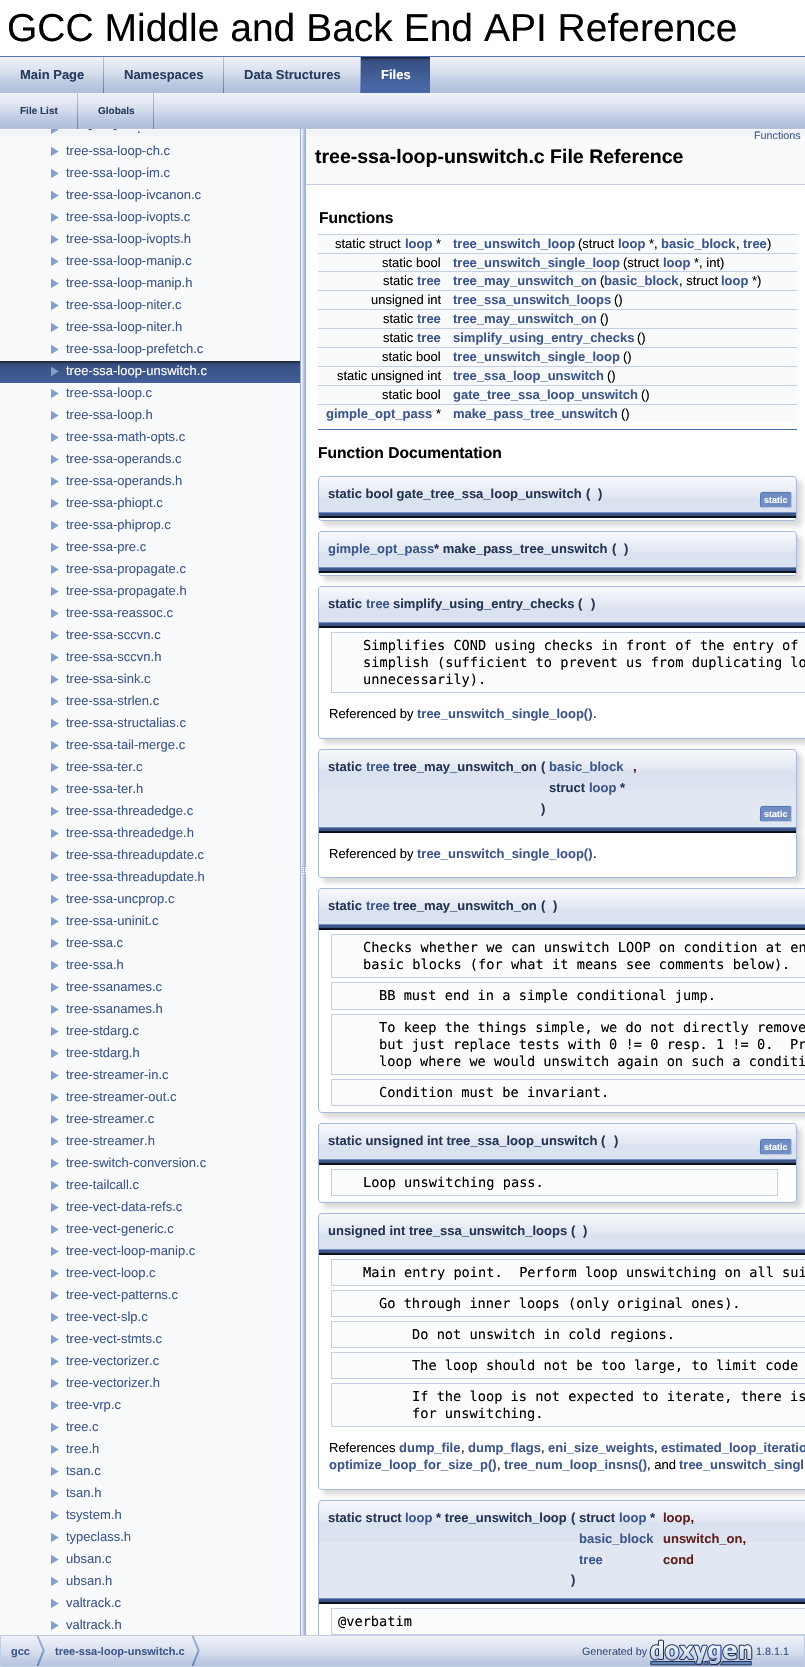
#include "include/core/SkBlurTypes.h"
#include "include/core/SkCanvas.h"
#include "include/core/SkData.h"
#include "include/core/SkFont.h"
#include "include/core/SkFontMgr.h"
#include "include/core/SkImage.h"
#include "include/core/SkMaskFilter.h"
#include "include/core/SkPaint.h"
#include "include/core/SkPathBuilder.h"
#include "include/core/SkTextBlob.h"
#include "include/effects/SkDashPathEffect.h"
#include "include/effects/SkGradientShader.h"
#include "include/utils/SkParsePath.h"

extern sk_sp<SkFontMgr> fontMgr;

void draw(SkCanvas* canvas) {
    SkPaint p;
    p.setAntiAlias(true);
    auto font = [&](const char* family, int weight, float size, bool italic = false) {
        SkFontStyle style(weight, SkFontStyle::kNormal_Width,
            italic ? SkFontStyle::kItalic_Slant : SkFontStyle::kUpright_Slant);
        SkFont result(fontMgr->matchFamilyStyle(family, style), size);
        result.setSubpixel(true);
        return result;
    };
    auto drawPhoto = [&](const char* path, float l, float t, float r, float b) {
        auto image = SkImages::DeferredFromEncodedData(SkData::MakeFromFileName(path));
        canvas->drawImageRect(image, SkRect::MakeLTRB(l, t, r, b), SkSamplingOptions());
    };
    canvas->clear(0xFFFFFFFF);
    p.setColor(0xFF5373B4);
    canvas->drawRect(SkRect::MakeLTRB(0, 56, 805, 57), p);
    auto font1 = font("Liberation Sans", 400, 39);
    p.setColor(0xFF000000);
    canvas->drawString("GCC Middle and Back End API Reference", 7, 41, font1, p);
    drawPhoto("media/1.png", 0, 57, 805, 93);
    drawPhoto("media/2.png", 103, 57, 104, 93);
    auto font2 = font("Liberation Sans", 700, 13);
    p.setColor(0xFF283A5D);
    canvas->drawString("Main Page", 20, 79, font2, p);
    drawPhoto("media/2.png", 223, 57, 224, 93);
    canvas->drawString("Namespaces", 124, 79, font2, p);
    drawPhoto("media/2.png", 360, 57, 361, 93);
    canvas->drawString("Data Structures", 244, 79, font2, p);
    drawPhoto("media/3.png", 361, 57, 430, 93);
    p.setColor(0xFFFFFFFF);
    canvas->drawString("Files", 381, 79, font2, p);
    drawPhoto("media/1.png", 0, 93, 805, 129);
    drawPhoto("media/2.png", 77, 93, 78, 129);
    auto font3 = font("Liberation Sans", 700, 10);
    p.setColor(0xFF283A5D);
    canvas->drawString("File List", 20, 114, font3, p);
    drawPhoto("media/2.png", 153, 93, 154, 129);
    canvas->drawString("Globals", 98, 114, font3, p);
    p.setColor(0xFFF9FAFC);
    canvas->drawRect(SkRect::MakeLTRB(0, 137, 300, 1635), p);
    drawPhoto("media/4.png", 0, 129, 300, 137);
    drawPhoto("media/5.png", 51, 129, 59, 134);
    auto font4 = font("Liberation Sans", 400, 13);
    p.setColor(0xFF3D578C);
    {
        const struct { const char* s; float x, y; } items[] = {
            {"-", 88, 133},
            {"-", 113, 133},
            {".", 137, 133},
        };
        for (auto [s, x, y] : items) {
            canvas->drawString(s, x, y, font4, p);
        }
    }
    drawPhoto("media/6.png", 51, 147, 59, 156);
    canvas->drawString("tree-ssa-loop-ch.c", 66, 155, font4, p);
    drawPhoto("media/6.png", 51, 169, 59, 178);
    canvas->drawString("tree-ssa-loop-im.c", 66, 177, font4, p);
    drawPhoto("media/6.png", 51, 191, 59, 200);
    canvas->drawString("tree-ssa-loop-ivcanon.c", 66, 199, font4, p);
    drawPhoto("media/6.png", 51, 213, 59, 222);
    canvas->drawString("tree-ssa-loop-ivopts.c", 66, 221, font4, p);
    drawPhoto("media/6.png", 51, 235, 59, 244);
    canvas->drawString("tree-ssa-loop-ivopts.h", 66, 243, font4, p);
    drawPhoto("media/6.png", 51, 257, 59, 266);
    canvas->drawString("tree-ssa-loop-manip.c", 66, 265, font4, p);
    drawPhoto("media/6.png", 51, 279, 59, 288);
    canvas->drawString("tree-ssa-loop-manip.h", 66, 287, font4, p);
    drawPhoto("media/6.png", 51, 301, 59, 310);
    canvas->drawString("tree-ssa-loop-niter.c", 66, 309, font4, p);
    drawPhoto("media/6.png", 51, 323, 59, 332);
    canvas->drawString("tree-ssa-loop-niter.h", 66, 331, font4, p);
    drawPhoto("media/6.png", 51, 345, 59, 354);
    canvas->drawString("tree-ssa-loop-prefetch.c", 66, 353, font4, p);
    drawPhoto("media/7.png", 0, 361, 300, 383);
    drawPhoto("media/8.png", 51, 367, 59, 376);
    p.setColor(0xFFFFFFFF);
    canvas->drawString("tree-ssa-loop-unswitch.c", 66, 375, font4, p);
    drawPhoto("media/6.png", 51, 389, 59, 398);
    p.setColor(0xFF3D578C);
    canvas->drawString("tree-ssa-loop.c", 66, 397, font4, p);
    drawPhoto("media/6.png", 51, 411, 59, 420);
    canvas->drawString("tree-ssa-loop.h", 66, 419, font4, p);
    drawPhoto("media/6.png", 51, 433, 59, 442);
    canvas->drawString("tree-ssa-math-opts.c", 66, 441, font4, p);
    drawPhoto("media/6.png", 51, 455, 59, 464);
    canvas->drawString("tree-ssa-operands.c", 66, 463, font4, p);
    drawPhoto("media/6.png", 51, 477, 59, 486);
    canvas->drawString("tree-ssa-operands.h", 66, 485, font4, p);
    drawPhoto("media/6.png", 51, 499, 59, 508);
    canvas->drawString("tree-ssa-phiopt.c", 66, 507, font4, p);
    drawPhoto("media/6.png", 51, 521, 59, 530);
    canvas->drawString("tree-ssa-phiprop.c", 66, 529, font4, p);
    drawPhoto("media/6.png", 51, 543, 59, 552);
    canvas->drawString("tree-ssa-pre.c", 66, 551, font4, p);
    drawPhoto("media/6.png", 51, 565, 59, 574);
    canvas->drawString("tree-ssa-propagate.c", 66, 573, font4, p);
    drawPhoto("media/6.png", 51, 587, 59, 596);
    canvas->drawString("tree-ssa-propagate.h", 66, 595, font4, p);
    drawPhoto("media/6.png", 51, 609, 59, 618);
    canvas->drawString("tree-ssa-reassoc.c", 66, 617, font4, p);
    drawPhoto("media/6.png", 51, 631, 59, 640);
    canvas->drawString("tree-ssa-sccvn.c", 66, 639, font4, p);
    drawPhoto("media/6.png", 51, 653, 59, 662);
    canvas->drawString("tree-ssa-sccvn.h", 66, 661, font4, p);
    drawPhoto("media/6.png", 51, 675, 59, 684);
    canvas->drawString("tree-ssa-sink.c", 66, 683, font4, p);
    drawPhoto("media/6.png", 51, 697, 59, 706);
    canvas->drawString("tree-ssa-strlen.c", 66, 705, font4, p);
    drawPhoto("media/6.png", 51, 719, 59, 728);
    canvas->drawString("tree-ssa-structalias.c", 66, 727, font4, p);
    drawPhoto("media/6.png", 51, 741, 59, 750);
    canvas->drawString("tree-ssa-tail-merge.c", 66, 749, font4, p);
    drawPhoto("media/6.png", 51, 763, 59, 772);
    canvas->drawString("tree-ssa-ter.c", 66, 771, font4, p);
    drawPhoto("media/6.png", 51, 785, 59, 794);
    canvas->drawString("tree-ssa-ter.h", 66, 793, font4, p);
    drawPhoto("media/6.png", 51, 807, 59, 816);
    canvas->drawString("tree-ssa-threadedge.c", 66, 815, font4, p);
    drawPhoto("media/6.png", 51, 829, 59, 838);
    canvas->drawString("tree-ssa-threadedge.h", 66, 837, font4, p);
    drawPhoto("media/6.png", 51, 851, 59, 860);
    canvas->drawString("tree-ssa-threadupdate.c", 66, 859, font4, p);
    drawPhoto("media/6.png", 51, 873, 59, 882);
    canvas->drawString("tree-ssa-threadupdate.h", 66, 881, font4, p);
    drawPhoto("media/6.png", 51, 895, 59, 904);
    canvas->drawString("tree-ssa-uncprop.c", 66, 903, font4, p);
    drawPhoto("media/6.png", 51, 917, 59, 926);
    canvas->drawString("tree-ssa-uninit.c", 66, 925, font4, p);
    drawPhoto("media/6.png", 51, 939, 59, 948);
    canvas->drawString("tree-ssa.c", 66, 947, font4, p);
    drawPhoto("media/6.png", 51, 961, 59, 970);
    canvas->drawString("tree-ssa.h", 66, 969, font4, p);
    drawPhoto("media/6.png", 51, 983, 59, 992);
    canvas->drawString("tree-ssanames.c", 66, 991, font4, p);
    drawPhoto("media/6.png", 51, 1005, 59, 1014);
    canvas->drawString("tree-ssanames.h", 66, 1013, font4, p);
    drawPhoto("media/6.png", 51, 1027, 59, 1036);
    canvas->drawString("tree-stdarg.c", 66, 1035, font4, p);
    drawPhoto("media/6.png", 51, 1049, 59, 1058);
    canvas->drawString("tree-stdarg.h", 66, 1057, font4, p);
    drawPhoto("media/6.png", 51, 1071, 59, 1080);
    canvas->drawString("tree-streamer-in.c", 66, 1079, font4, p);
    drawPhoto("media/6.png", 51, 1093, 59, 1102);
    canvas->drawString("tree-streamer-out.c", 66, 1101, font4, p);
    drawPhoto("media/6.png", 51, 1115, 59, 1124);
    canvas->drawString("tree-streamer.c", 66, 1123, font4, p);
    drawPhoto("media/6.png", 51, 1137, 59, 1146);
    canvas->drawString("tree-streamer.h", 66, 1145, font4, p);
    drawPhoto("media/6.png", 51, 1159, 59, 1168);
    canvas->drawString("tree-switch-conversion.c", 66, 1167, font4, p);
    drawPhoto("media/6.png", 51, 1181, 59, 1190);
    canvas->drawString("tree-tailcall.c", 66, 1189, font4, p);
    drawPhoto("media/6.png", 51, 1203, 59, 1212);
    canvas->drawString("tree-vect-data-refs.c", 66, 1211, font4, p);
    drawPhoto("media/6.png", 51, 1225, 59, 1234);
    canvas->drawString("tree-vect-generic.c", 66, 1233, font4, p);
    drawPhoto("media/6.png", 51, 1247, 59, 1256);
    canvas->drawString("tree-vect-loop-manip.c", 66, 1255, font4, p);
    drawPhoto("media/6.png", 51, 1269, 59, 1278);
    canvas->drawString("tree-vect-loop.c", 66, 1277, font4, p);
    drawPhoto("media/6.png", 51, 1291, 59, 1300);
    canvas->drawString("tree-vect-patterns.c", 66, 1299, font4, p);
    drawPhoto("media/6.png", 51, 1313, 59, 1322);
    canvas->drawString("tree-vect-slp.c", 66, 1321, font4, p);
    drawPhoto("media/6.png", 51, 1335, 59, 1344);
    canvas->drawString("tree-vect-stmts.c", 66, 1343, font4, p);
    drawPhoto("media/6.png", 51, 1357, 59, 1366);
    canvas->drawString("tree-vectorizer.c", 66, 1365, font4, p);
    drawPhoto("media/6.png", 51, 1379, 59, 1388);
    canvas->drawString("tree-vectorizer.h", 66, 1387, font4, p);
    drawPhoto("media/6.png", 51, 1401, 59, 1410);
    canvas->drawString("tree-vrp.c", 66, 1409, font4, p);
    drawPhoto("media/6.png", 51, 1423, 59, 1432);
    canvas->drawString("tree.c", 66, 1431, font4, p);
    drawPhoto("media/6.png", 51, 1445, 59, 1454);
    canvas->drawString("tree.h", 66, 1453, font4, p);
    drawPhoto("media/6.png", 51, 1467, 59, 1476);
    canvas->drawString("tsan.c", 66, 1475, font4, p);
    drawPhoto("media/6.png", 51, 1489, 59, 1498);
    canvas->drawString("tsan.h", 66, 1497, font4, p);
    drawPhoto("media/6.png", 51, 1511, 59, 1520);
    canvas->drawString("tsystem.h", 66, 1519, font4, p);
    drawPhoto("media/6.png", 51, 1533, 59, 1542);
    canvas->drawString("typeclass.h", 66, 1541, font4, p);
    drawPhoto("media/6.png", 51, 1555, 59, 1564);
    canvas->drawString("ubsan.c", 66, 1563, font4, p);
    drawPhoto("media/6.png", 51, 1577, 59, 1586);
    canvas->drawString("ubsan.h", 66, 1585, font4, p);
    drawPhoto("media/6.png", 51, 1599, 59, 1608);
    canvas->drawString("valtrack.c", 66, 1607, font4, p);
    drawPhoto("media/6.png", 51, 1621, 59, 1630);
    canvas->drawString("valtrack.h", 66, 1629, font4, p);
    drawPhoto("media/9.png", 300, 129, 306, 1635);
    p.setColor(0xFFF9FAFC);
    canvas->drawRect(SkRect::MakeLTRB(306, 137, 805, 184), p);
    drawPhoto("media/10.png", 306, 129, 805, 137);
    p.setColor(0xFFC4CFE5);
    canvas->drawRect(SkRect::MakeLTRB(306, 184, 805, 185), p);
    auto font5 = font("Liberation Sans", 400, 10.75f);
    p.setColor(0xFF3D578C);
    canvas->drawString("Functions", 754, 139, font5, p);
    auto font6 = font("Liberation Sans", 700, 19.5f);
    p.setColor(0xFF000000);
    canvas->drawString("tree-ssa-loop-unswitch.c File Reference", 315, 163, font6, p);
    auto font7 = font("Liberation Sans", 700, 15.6f);
    canvas->drawString("Functions", 319, 223, font7, p);
    p.setColor(0xFFF9FAFC);
    canvas->drawRect(SkRect::MakeLTRB(318, 235, 797, 253), p);
    p.setColor(0xFFC4CFE5);
    canvas->drawRect(SkRect::MakeLTRB(318, 234, 797, 235), p);
    p.setColor(0xFF000000);
    canvas->drawString("static struct", 335, 248, font4, p);
    p.setColor(0xFF3D578C);
    canvas->drawString("loop", 405, 248, font2, p);
    p.setColor(0xFF000000);
    canvas->drawString("*", 436, 248, font4, p);
    p.setColor(0xFF3D578C);
    canvas->drawString("tree_unswitch_loop", 453, 248, font2, p);
    p.setColor(0xFF000000);
    canvas->drawString("(struct", 578, 248, font4, p);
    p.setColor(0xFF3D578C);
    canvas->drawString("loop", 618, 248, font2, p);
    p.setColor(0xFF000000);
    canvas->drawString("*,", 649, 248, font4, p);
    p.setColor(0xFF3D578C);
    canvas->drawString("basic_block", 661, 248, font2, p);
    p.setColor(0xFF000000);
    canvas->drawString(",", 736, 248, font4, p);
    p.setColor(0xFF3D578C);
    canvas->drawString("tree", 743, 248, font2, p);
    p.setColor(0xFF000000);
    canvas->drawString(")", 767, 248, font4, p);
    p.setColor(0xFFF9FAFC);
    canvas->drawRect(SkRect::MakeLTRB(318, 254, 797, 271), p);
    p.setColor(0xFFC4CFE5);
    canvas->drawRect(SkRect::MakeLTRB(318, 253, 797, 254), p);
    p.setColor(0xFF000000);
    canvas->drawString("static bool", 382, 267, font4, p);
    p.setColor(0xFF3D578C);
    canvas->drawString("tree_unswitch_single_loop", 453, 267, font2, p);
    p.setColor(0xFF000000);
    canvas->drawString("(struct", 623, 267, font4, p);
    p.setColor(0xFF3D578C);
    canvas->drawString("loop", 663, 267, font2, p);
    p.setColor(0xFF000000);
    canvas->drawString("*, int)", 694, 267, font4, p);
    p.setColor(0xFFF9FAFC);
    canvas->drawRect(SkRect::MakeLTRB(318, 272, 797, 290), p);
    p.setColor(0xFFC4CFE5);
    canvas->drawRect(SkRect::MakeLTRB(318, 271, 797, 272), p);
    p.setColor(0xFF000000);
    canvas->drawString("static", 383, 285, font4, p);
    p.setColor(0xFF3D578C);
    canvas->drawString("tree", 417, 285, font2, p);
    canvas->drawString("tree_may_unswitch_on", 453, 285, font2, p);
    p.setColor(0xFF000000);
    canvas->drawString("(", 600, 285, font4, p);
    p.setColor(0xFF3D578C);
    canvas->drawString("basic_block", 604, 285, font2, p);
    p.setColor(0xFF000000);
    canvas->drawString(", struct", 679, 285, font4, p);
    p.setColor(0xFF3D578C);
    canvas->drawString("loop", 721, 285, font2, p);
    p.setColor(0xFF000000);
    canvas->drawString("*)", 752, 285, font4, p);
    p.setColor(0xFFF9FAFC);
    canvas->drawRect(SkRect::MakeLTRB(318, 291, 797, 309), p);
    p.setColor(0xFFC4CFE5);
    canvas->drawRect(SkRect::MakeLTRB(318, 290, 797, 291), p);
    p.setColor(0xFF000000);
    canvas->drawString("unsigned int", 371, 304, font4, p);
    p.setColor(0xFF3D578C);
    canvas->drawString("tree_ssa_unswitch_loops", 453, 304, font2, p);
    p.setColor(0xFF000000);
    canvas->drawString("()", 614, 304, font4, p);
    p.setColor(0xFFF9FAFC);
    canvas->drawRect(SkRect::MakeLTRB(318, 310, 797, 328), p);
    p.setColor(0xFFC4CFE5);
    canvas->drawRect(SkRect::MakeLTRB(318, 309, 797, 310), p);
    p.setColor(0xFF000000);
    canvas->drawString("static", 383, 323, font4, p);
    p.setColor(0xFF3D578C);
    canvas->drawString("tree", 417, 323, font2, p);
    canvas->drawString("tree_may_unswitch_on", 453, 323, font2, p);
    p.setColor(0xFF000000);
    canvas->drawString("()", 600, 323, font4, p);
    p.setColor(0xFFF9FAFC);
    canvas->drawRect(SkRect::MakeLTRB(318, 329, 797, 347), p);
    p.setColor(0xFFC4CFE5);
    canvas->drawRect(SkRect::MakeLTRB(318, 328, 797, 329), p);
    p.setColor(0xFF000000);
    canvas->drawString("static", 383, 342, font4, p);
    p.setColor(0xFF3D578C);
    canvas->drawString("tree", 417, 342, font2, p);
    canvas->drawString("simplify_using_entry_checks", 453, 342, font2, p);
    p.setColor(0xFF000000);
    canvas->drawString("()", 637, 342, font4, p);
    p.setColor(0xFFF9FAFC);
    canvas->drawRect(SkRect::MakeLTRB(318, 348, 797, 366), p);
    p.setColor(0xFFC4CFE5);
    canvas->drawRect(SkRect::MakeLTRB(318, 347, 797, 348), p);
    p.setColor(0xFF000000);
    canvas->drawString("static bool", 382, 361, font4, p);
    p.setColor(0xFF3D578C);
    canvas->drawString("tree_unswitch_single_loop", 453, 361, font2, p);
    p.setColor(0xFF000000);
    canvas->drawString("()", 623, 361, font4, p);
    p.setColor(0xFFF9FAFC);
    canvas->drawRect(SkRect::MakeLTRB(318, 367, 797, 385), p);
    p.setColor(0xFFC4CFE5);
    canvas->drawRect(SkRect::MakeLTRB(318, 366, 797, 367), p);
    p.setColor(0xFF000000);
    canvas->drawString("static unsigned int", 337, 380, font4, p);
    p.setColor(0xFF3D578C);
    canvas->drawString("tree_ssa_loop_unswitch", 453, 380, font2, p);
    p.setColor(0xFF000000);
    canvas->drawString("()", 607, 380, font4, p);
    p.setColor(0xFFF9FAFC);
    canvas->drawRect(SkRect::MakeLTRB(318, 386, 797, 404), p);
    p.setColor(0xFFC4CFE5);
    canvas->drawRect(SkRect::MakeLTRB(318, 385, 797, 386), p);
    p.setColor(0xFF000000);
    canvas->drawString("static bool", 382, 399, font4, p);
    p.setColor(0xFF3D578C);
    canvas->drawString("gate_tree_ssa_loop_unswitch", 453, 399, font2, p);
    p.setColor(0xFF000000);
    canvas->drawString("()", 641, 399, font4, p);
    p.setColor(0xFFF9FAFC);
    canvas->drawRect(SkRect::MakeLTRB(318, 405, 797, 423), p);
    p.setColor(0xFFC4CFE5);
    canvas->drawRect(SkRect::MakeLTRB(318, 404, 797, 405), p);
    p.setColor(0xFF3D578C);
    canvas->drawString("gimple_opt_pass", 326, 418, font2, p);
    p.setColor(0xFF000000);
    canvas->drawString("*", 436, 418, font4, p);
    p.setColor(0xFF3D578C);
    canvas->drawString("make_pass_tree_unswitch", 453, 418, font2, p);
    p.setColor(0xFF000000);
    canvas->drawString("()", 621, 418, font4, p);
    p.setColor(0xFF4A6AAA);
    canvas->drawRect(SkRect::MakeLTRB(318, 429, 797, 430), p);
    p.setColor(0xFF000000);
    canvas->drawString("Function Documentation", 318, 458, font7, p);
    p.setColor(0x26000000);
    p.setMaskFilter(SkMaskFilter::MakeBlur(kNormal_SkBlurStyle, 2.5f));
    canvas->drawRoundRect(SkRect::MakeLTRB(323, 481, 802, 517), 4, 4, p);
    p.setMaskFilter(nullptr);
    drawPhoto("media/11.png", 318, 477, 797, 512);
    p.setColor(0xFFA8B8D9);
    canvas->drawPath(SkPathBuilder(SkPathFillType::kEvenOdd).moveTo(322, 476).lineTo(793, 476).cubicTo(795, 476, 797, 478, 797, 480).lineTo(797, 512).lineTo(318, 512).lineTo(318, 480).cubicTo(318, 478, 320, 476, 322, 476).close().moveTo(322, 477).lineTo(793, 477).cubicTo(795, 477, 796, 478, 796, 480).lineTo(796, 512).lineTo(319, 512).lineTo(319, 480).cubicTo(319, 478, 320, 477, 322, 477).close().detach(), p);
    p.setColor(0xFF253555);
    {
        const struct { const char* s; float x, y; } items[] = {
            {"static bool gate_tree_ssa_loop_unswitch", 328, 498},
            {"(", 586, 498},
            {")", 598, 498},
        };
        for (auto [s, x, y] : items) {
            canvas->drawString(s, x, y, font2, p);
        }
    }
    p.setColor(0xFF728DC1);
    canvas->drawRoundRect(SkRect::MakeLTRB(760, 492, 792, 508), 3, 3, p);
    p.setColor(0x26000000);
    p.setMaskFilter(SkMaskFilter::MakeBlur(kNormal_SkBlurStyle, 2.5f));
    canvas->drawRoundRect(SkRect::MakeLTRB(323, 517, 802, 526), 4, 4, p);
    p.setMaskFilter(nullptr);
    p.setStyle(SkPaint::kStroke_Style);
    p.setStrokeWidth(1);
    p.setColor(0xFFC4CFE5);
    canvas->drawPath(SkPathBuilder().moveTo(791, 493).cubicTo(792, 494.5f, 791.5f, 498.5f, 791.5f, 500).cubicTo(791.5f, 509.5f, 791.5f, 507.5f, 780.5f, 507.5f).lineTo(767.5f, 507.5f).cubicTo(766, 507.5f, 762.5f, 508, 761, 507).detach(), p);
    p.setColor(0xFF5373B4);
    canvas->drawPath(SkPathBuilder().moveTo(761, 507).cubicTo(760, 505.5f, 760.5f, 501.5f, 760.5f, 500).cubicTo(760.5f, 490.5f, 760.5f, 492.5f, 771.5f, 492.5f).lineTo(784.5f, 492.5f).cubicTo(786, 492.5f, 789.5f, 492, 791, 493).detach(), p);
    auto font8 = font("Liberation Sans", 700, 9);
    p.setStyle(SkPaint::kFill_Style);
    p.setColor(0xFFFFFFFF);
    canvas->drawString("static", 764, 503, font8, p);
    canvas->drawPath(SkPathBuilder().moveTo(318, 512).lineTo(797, 512).lineTo(797, 517).cubicTo(797, 519, 795, 521, 793, 521).lineTo(322, 521).cubicTo(320, 521, 318, 519, 318, 517).close().detach(), p);
    drawPhoto("media/12.png", 318, 512, 797, 518);
    p.setColor(0xFFA8B8D9);
    canvas->drawPath(SkPathBuilder(SkPathFillType::kEvenOdd).moveTo(318, 512).lineTo(797, 512).lineTo(797, 517).cubicTo(797, 519, 795, 521, 793, 521).lineTo(322, 521).cubicTo(320, 521, 318, 519, 318, 517).close().moveTo(319, 512).lineTo(796, 512).lineTo(796, 517).cubicTo(796, 519, 795, 520, 793, 520).lineTo(322, 520).cubicTo(320, 520, 319, 519, 319, 517).close().detach(), p);
    p.setColor(0x26000000);
    p.setMaskFilter(SkMaskFilter::MakeBlur(kNormal_SkBlurStyle, 2.5f));
    canvas->drawRoundRect(SkRect::MakeLTRB(323, 536, 802, 572), 4, 4, p);
    p.setMaskFilter(nullptr);
    drawPhoto("media/13.png", 318, 532, 797, 567);
    p.setColor(0xFFA8B8D9);
    canvas->drawPath(SkPathBuilder(SkPathFillType::kEvenOdd).moveTo(322, 531).lineTo(793, 531).cubicTo(795, 531, 797, 533, 797, 535).lineTo(797, 567).lineTo(318, 567).lineTo(318, 535).cubicTo(318, 533, 320, 531, 322, 531).close().moveTo(322, 532).lineTo(793, 532).cubicTo(795, 532, 796, 533, 796, 535).lineTo(796, 567).lineTo(319, 567).lineTo(319, 535).cubicTo(319, 533, 320, 532, 322, 532).close().detach(), p);
    p.setColor(0xFF3D578C);
    canvas->drawString("gimple_opt_pass", 328, 553, font2, p);
    p.setColor(0xFF253555);
    {
        const struct { const char* s; float x, y; } items[] = {
            {"* make_pass_tree_unswitch", 434, 553},
            {"(", 612, 553},
            {")", 624, 553},
        };
        for (auto [s, x, y] : items) {
            canvas->drawString(s, x, y, font2, p);
        }
    }
    p.setColor(0x26000000);
    p.setMaskFilter(SkMaskFilter::MakeBlur(kNormal_SkBlurStyle, 2.5f));
    canvas->drawRoundRect(SkRect::MakeLTRB(323, 572, 802, 581), 4, 4, p);
    p.setMaskFilter(nullptr);
    p.setColor(0xFFFFFFFF);
    canvas->drawPath(SkPathBuilder().moveTo(318, 567).lineTo(797, 567).lineTo(797, 572).cubicTo(797, 574, 795, 576, 793, 576).lineTo(322, 576).cubicTo(320, 576, 318, 574, 318, 572).close().detach(), p);
    drawPhoto("media/12.png", 318, 567, 797, 573);
    p.setColor(0xFFA8B8D9);
    canvas->drawPath(SkPathBuilder(SkPathFillType::kEvenOdd).moveTo(318, 567).lineTo(797, 567).lineTo(797, 572).cubicTo(797, 574, 795, 576, 793, 576).lineTo(322, 576).cubicTo(320, 576, 318, 574, 318, 572).close().moveTo(319, 567).lineTo(796, 567).lineTo(796, 572).cubicTo(796, 574, 795, 575, 793, 575).lineTo(322, 575).cubicTo(320, 575, 319, 574, 319, 572).close().detach(), p);
    drawPhoto("media/14.png", 318, 587, 805, 622);
    canvas->drawPath(SkPathBuilder(SkPathFillType::kEvenOdd).moveTo(322, 586).lineTo(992, 586).cubicTo(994, 586, 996, 588, 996, 590).lineTo(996, 622).lineTo(318, 622).lineTo(318, 590).cubicTo(318, 588, 320, 586, 322, 586).close().moveTo(322, 587).lineTo(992, 587).cubicTo(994, 587, 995, 588, 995, 590).lineTo(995, 622).lineTo(319, 622).lineTo(319, 590).cubicTo(319, 588, 320, 587, 322, 587).close().detach(), p);
    p.setColor(0xFF253555);
    canvas->drawString("static", 328, 608, font2, p);
    p.setColor(0xFF3D578C);
    canvas->drawString("tree", 366, 608, font2, p);
    p.setColor(0xFF253555);
    {
        const struct { const char* s; float x, y; } items[] = {
            {"simplify_using_entry_checks", 393, 608},
            {"(", 578, 608},
            {")", 591, 608},
        };
        for (auto [s, x, y] : items) {
            canvas->drawString(s, x, y, font2, p);
        }
    }
    p.setColor(0x26000000);
    p.setMaskFilter(SkMaskFilter::MakeBlur(kNormal_SkBlurStyle, 2.5f));
    canvas->drawRoundRect(SkRect::MakeLTRB(323, 627, 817, 744), 4, 4, p);
    p.setMaskFilter(nullptr);
    p.setColor(0xFFFFFFFF);
    canvas->drawPath(SkPathBuilder().moveTo(318, 622).lineTo(805, 622).lineTo(805, 739).lineTo(322, 739).cubicTo(320, 739, 318, 737, 318, 735).close().detach(), p);
    drawPhoto("media/15.png", 319, 622, 805, 628);
    p.setColor(0xFFA8B8D9);
    canvas->drawPath(SkPathBuilder(SkPathFillType::kEvenOdd).moveTo(318, 622).lineTo(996, 622).lineTo(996, 735).cubicTo(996, 737, 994, 739, 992, 739).lineTo(322, 739).cubicTo(320, 739, 318, 737, 318, 735).close().moveTo(319, 622).lineTo(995, 622).lineTo(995, 735).cubicTo(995, 737, 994, 738, 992, 738).lineTo(322, 738).cubicTo(320, 738, 319, 737, 319, 735).close().detach(), p);
    p.setColor(0xFFFBFCFD);
    canvas->drawRect(SkRect::MakeLTRB(331.5f, 632.5f, 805.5f, 692.5f), p);
    p.setStyle(SkPaint::kStroke_Style);
    p.setColor(0xFFC4CFE5);
    canvas->drawRect(SkRect::MakeLTRB(331.5f, 632.5f, 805.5f, 692.5f), p);
    auto font9 = font("DejaVu Sans Mono", 400, 13.65f);
    p.setStyle(SkPaint::kFill_Style);
    p.setColor(0xFF000000);
    {
        const struct { const char* s; float x, y; } items[] = {
            {"Simplifies COND using checks in front of the entry of", 363, 650},
            {"simplish (sufficient to prevent us from duplicating lo", 363, 667},
            {"unnecessarily).", 363, 684},
        };
        for (auto [s, x, y] : items) {
            canvas->drawString(s, x, y, font9, p);
        }
    }
    canvas->drawString("Referenced by", 329, 718, font4, p);
    p.setColor(0xFF3D578C);
    canvas->drawString("tree_unswitch_single_loop()", 417, 718, font2, p);
    p.setColor(0xFF000000);
    canvas->drawString(".", 593, 718, font4, p);
    p.setColor(0x26000000);
    p.setMaskFilter(SkMaskFilter::MakeBlur(kNormal_SkBlurStyle, 2.5f));
    canvas->drawRoundRect(SkRect::MakeLTRB(323, 754, 802, 832), 4, 4, p);
    p.setMaskFilter(nullptr);
    p.setColor(0xFFE2E8F2);
    canvas->drawPath(SkPathBuilder().moveTo(322, 749).lineTo(793, 749).cubicTo(795, 749, 797, 751, 797, 753).lineTo(797, 827).lineTo(318, 827).lineTo(318, 753).cubicTo(318, 751, 320, 749, 322, 749).close().detach(), p);
    drawPhoto("media/16.png", 318, 750, 797, 791);
    p.setColor(0xFFA8B8D9);
    canvas->drawPath(SkPathBuilder(SkPathFillType::kEvenOdd).moveTo(322, 749).lineTo(793, 749).cubicTo(795, 749, 797, 751, 797, 753).lineTo(797, 827).lineTo(318, 827).lineTo(318, 753).cubicTo(318, 751, 320, 749, 322, 749).close().moveTo(322, 750).lineTo(793, 750).cubicTo(795, 750, 796, 751, 796, 753).lineTo(796, 827).lineTo(319, 827).lineTo(319, 753).cubicTo(319, 751, 320, 750, 322, 750).close().detach(), p);
    p.setColor(0xFF253555);
    canvas->drawString("static", 328, 771, font2, p);
    p.setColor(0xFF3D578C);
    canvas->drawString("tree", 366, 771, font2, p);
    p.setColor(0xFF253555);
    canvas->drawString("tree_may_unswitch_on", 393, 771, font2, p);
    canvas->drawString("(", 541, 771, font2, p);
    p.setColor(0xFF3D578C);
    canvas->drawString("basic_block", 549, 771, font2, p);
    p.setColor(0xFF602020);
    canvas->drawString(",", 633, 771, font2, p);
    p.setColor(0xFF253555);
    canvas->drawString("struct", 549, 792, font2, p);
    p.setColor(0xFF3D578C);
    canvas->drawString("loop", 589, 792, font2, p);
    p.setColor(0xFF253555);
    canvas->drawString("*", 620, 792, font2, p);
    canvas->drawString(")", 541, 813, font2, p);
    p.setColor(0xFF728DC1);
    canvas->drawRoundRect(SkRect::MakeLTRB(760, 806, 792, 822), 3, 3, p);
    p.setStyle(SkPaint::kStroke_Style);
    p.setColor(0xFFC4CFE5);
    canvas->drawPath(SkPathBuilder().moveTo(791, 807).cubicTo(792, 808.5f, 791.5f, 812.5f, 791.5f, 814).cubicTo(791.5f, 823.5f, 791.5f, 821.5f, 780.5f, 821.5f).lineTo(767.5f, 821.5f).cubicTo(766, 821.5f, 762.5f, 822, 761, 821).detach(), p);
    p.setColor(0xFF5373B4);
    canvas->drawPath(SkPathBuilder().moveTo(761, 821).cubicTo(760, 819.5f, 760.5f, 815.5f, 760.5f, 814).cubicTo(760.5f, 804.5f, 760.5f, 806.5f, 771.5f, 806.5f).lineTo(784.5f, 806.5f).cubicTo(786, 806.5f, 789.5f, 806, 791, 807).detach(), p);
    p.setStyle(SkPaint::kFill_Style);
    p.setColor(0xFFFFFFFF);
    canvas->drawString("static", 764, 817, font8, p);
    p.setColor(0x26000000);
    p.setMaskFilter(SkMaskFilter::MakeBlur(kNormal_SkBlurStyle, 2.5f));
    canvas->drawRoundRect(SkRect::MakeLTRB(323, 832, 802, 883), 4, 4, p);
    p.setMaskFilter(nullptr);
    p.setColor(0xFFFFFFFF);
    canvas->drawPath(SkPathBuilder().moveTo(318, 827).lineTo(797, 827).lineTo(797, 874).cubicTo(797, 876, 795, 878, 793, 878).lineTo(322, 878).cubicTo(320, 878, 318, 876, 318, 874).close().detach(), p);
    drawPhoto("media/17.png", 319, 827, 796, 833);
    p.setColor(0xFFA8B8D9);
    canvas->drawPath(SkPathBuilder(SkPathFillType::kEvenOdd).moveTo(318, 827).lineTo(797, 827).lineTo(797, 874).cubicTo(797, 876, 795, 878, 793, 878).lineTo(322, 878).cubicTo(320, 878, 318, 876, 318, 874).close().moveTo(319, 827).lineTo(796, 827).lineTo(796, 874).cubicTo(796, 876, 795, 877, 793, 877).lineTo(322, 877).cubicTo(320, 877, 319, 876, 319, 874).close().detach(), p);
    p.setColor(0xFF000000);
    canvas->drawString("Referenced by", 329, 858, font4, p);
    p.setColor(0xFF3D578C);
    canvas->drawString("tree_unswitch_single_loop()", 417, 858, font2, p);
    p.setColor(0xFF000000);
    canvas->drawString(".", 593, 858, font4, p);
    drawPhoto("media/14.png", 318, 889, 805, 924);
    p.setColor(0xFFA8B8D9);
    canvas->drawPath(SkPathBuilder(SkPathFillType::kEvenOdd).moveTo(322, 888).lineTo(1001, 888).cubicTo(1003, 888, 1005, 890, 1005, 892).lineTo(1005, 924).lineTo(318, 924).lineTo(318, 892).cubicTo(318, 890, 320, 888, 322, 888).close().moveTo(322, 889).lineTo(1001, 889).cubicTo(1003, 889, 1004, 890, 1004, 892).lineTo(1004, 924).lineTo(319, 924).lineTo(319, 892).cubicTo(319, 890, 320, 889, 322, 889).close().detach(), p);
    p.setColor(0xFF253555);
    canvas->drawString("static", 328, 910, font2, p);
    p.setColor(0xFF3D578C);
    canvas->drawString("tree", 366, 910, font2, p);
    p.setColor(0xFF253555);
    {
        const struct { const char* s; float x, y; } items[] = {
            {"tree_may_unswitch_on", 393, 910},
            {"(", 541, 910},
            {")", 553, 910},
        };
        for (auto [s, x, y] : items) {
            canvas->drawString(s, x, y, font2, p);
        }
    }
    p.setColor(0x26000000);
    p.setMaskFilter(SkMaskFilter::MakeBlur(kNormal_SkBlurStyle, 2.5f));
    canvas->drawRoundRect(SkRect::MakeLTRB(323, 929, 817, 1118), 4, 4, p);
    p.setMaskFilter(nullptr);
    p.setColor(0xFFFFFFFF);
    canvas->drawPath(SkPathBuilder().moveTo(318, 924).lineTo(805, 924).lineTo(805, 1113).lineTo(322, 1113).cubicTo(320, 1113, 318, 1111, 318, 1109).close().detach(), p);
    drawPhoto("media/15.png", 319, 924, 805, 930);
    p.setColor(0xFFA8B8D9);
    canvas->drawPath(SkPathBuilder(SkPathFillType::kEvenOdd).moveTo(318, 924).lineTo(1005, 924).lineTo(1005, 1109).cubicTo(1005, 1111, 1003, 1113, 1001, 1113).lineTo(322, 1113).cubicTo(320, 1113, 318, 1111, 318, 1109).close().moveTo(319, 924).lineTo(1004, 924).lineTo(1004, 1109).cubicTo(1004, 1111, 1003, 1112, 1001, 1112).lineTo(322, 1112).cubicTo(320, 1112, 319, 1111, 319, 1109).close().detach(), p);
    p.setColor(0xFFFBFCFD);
    canvas->drawRect(SkRect::MakeLTRB(331.5f, 934.5f, 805.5f, 977.5f), p);
    p.setStyle(SkPaint::kStroke_Style);
    p.setColor(0xFFC4CFE5);
    canvas->drawRect(SkRect::MakeLTRB(331.5f, 934.5f, 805.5f, 977.5f), p);
    p.setStyle(SkPaint::kFill_Style);
    p.setColor(0xFF000000);
    canvas->drawString("Checks whether we can unswitch LOOP on condition at en", 363, 952, font9, p);
    canvas->drawString("basic blocks (for what it means see comments below).", 363, 969, font9, p);
    p.setColor(0xFFFBFCFD);
    canvas->drawRect(SkRect::MakeLTRB(331.5f, 982.5f, 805.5f, 1009.5f), p);
    p.setStyle(SkPaint::kStroke_Style);
    p.setColor(0xFFC4CFE5);
    canvas->drawRect(SkRect::MakeLTRB(331.5f, 982.5f, 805.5f, 1009.5f), p);
    p.setStyle(SkPaint::kFill_Style);
    p.setColor(0xFF000000);
    canvas->drawString("BB must end in a simple conditional jump.", 379, 1000, font9, p);
    p.setColor(0xFFFBFCFD);
    canvas->drawRect(SkRect::MakeLTRB(331.5f, 1014.5f, 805.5f, 1074.5f), p);
    p.setStyle(SkPaint::kStroke_Style);
    p.setColor(0xFFC4CFE5);
    canvas->drawRect(SkRect::MakeLTRB(331.5f, 1014.5f, 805.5f, 1074.5f), p);
    p.setStyle(SkPaint::kFill_Style);
    p.setColor(0xFF000000);
    {
        const struct { const char* s; float x, y; } items[] = {
            {"To keep the things simple, we do not directly remove", 379, 1032},
            {"but just replace tests with 0 != 0 resp. 1 != 0.  Pr", 379, 1049},
            {"loop where we would unswitch again on such a conditi", 379, 1066},
        };
        for (auto [s, x, y] : items) {
            canvas->drawString(s, x, y, font9, p);
        }
    }
    p.setColor(0xFFFBFCFD);
    canvas->drawRect(SkRect::MakeLTRB(331.5f, 1079.5f, 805.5f, 1105.5f), p);
    p.setStyle(SkPaint::kStroke_Style);
    p.setColor(0xFFC4CFE5);
    canvas->drawRect(SkRect::MakeLTRB(331.5f, 1079.5f, 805.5f, 1105.5f), p);
    p.setStyle(SkPaint::kFill_Style);
    p.setColor(0xFF000000);
    canvas->drawString("Condition must be invariant.", 379, 1097, font9, p);
    p.setColor(0x26000000);
    p.setMaskFilter(SkMaskFilter::MakeBlur(kNormal_SkBlurStyle, 2.5f));
    canvas->drawRoundRect(SkRect::MakeLTRB(323, 1128, 802, 1164), 4, 4, p);
    p.setMaskFilter(nullptr);
    drawPhoto("media/13.png", 318, 1124, 797, 1159);
    p.setColor(0xFFA8B8D9);
    canvas->drawPath(SkPathBuilder(SkPathFillType::kEvenOdd).moveTo(322, 1123).lineTo(793, 1123).cubicTo(795, 1123, 797, 1125, 797, 1127).lineTo(797, 1159).lineTo(318, 1159).lineTo(318, 1127).cubicTo(318, 1125, 320, 1123, 322, 1123).close().moveTo(322, 1124).lineTo(793, 1124).cubicTo(795, 1124, 796, 1125, 796, 1127).lineTo(796, 1159).lineTo(319, 1159).lineTo(319, 1127).cubicTo(319, 1125, 320, 1124, 322, 1124).close().detach(), p);
    p.setColor(0xFF253555);
    {
        const struct { const char* s; float x, y; } items[] = {
            {"static unsigned int tree_ssa_loop_unswitch", 328, 1145},
            {"(", 601, 1145},
            {")", 614, 1145},
        };
        for (auto [s, x, y] : items) {
            canvas->drawString(s, x, y, font2, p);
        }
    }
    p.setColor(0xFF728DC1);
    canvas->drawRoundRect(SkRect::MakeLTRB(760, 1139, 792, 1155), 3, 3, p);
    p.setColor(0x26000000);
    p.setMaskFilter(SkMaskFilter::MakeBlur(kNormal_SkBlurStyle, 2.5f));
    canvas->drawRoundRect(SkRect::MakeLTRB(323, 1164, 802, 1208), 4, 4, p);
    p.setMaskFilter(nullptr);
    p.setStyle(SkPaint::kStroke_Style);
    p.setColor(0xFFC4CFE5);
    canvas->drawPath(SkPathBuilder().moveTo(791, 1140).cubicTo(792, 1141.5f, 791.5f, 1145.5f, 791.5f, 1147).cubicTo(791.5f, 1156.5f, 791.5f, 1154.5f, 780.5f, 1154.5f).lineTo(767.5f, 1154.5f).cubicTo(766, 1154.5f, 762.5f, 1155, 761, 1154).detach(), p);
    p.setColor(0xFF5373B4);
    canvas->drawPath(SkPathBuilder().moveTo(761, 1154).cubicTo(760, 1152.5f, 760.5f, 1148.5f, 760.5f, 1147).cubicTo(760.5f, 1137.5f, 760.5f, 1139.5f, 771.5f, 1139.5f).lineTo(784.5f, 1139.5f).cubicTo(786, 1139.5f, 789.5f, 1139, 791, 1140).detach(), p);
    p.setStyle(SkPaint::kFill_Style);
    p.setColor(0xFFFFFFFF);
    canvas->drawString("static", 764, 1150, font8, p);
    canvas->drawPath(SkPathBuilder().moveTo(318, 1159).lineTo(797, 1159).lineTo(797, 1199).cubicTo(797, 1201, 795, 1203, 793, 1203).lineTo(322, 1203).cubicTo(320, 1203, 318, 1201, 318, 1199).close().detach(), p);
    drawPhoto("media/17.png", 319, 1159, 796, 1165);
    p.setColor(0xFFA8B8D9);
    canvas->drawPath(SkPathBuilder(SkPathFillType::kEvenOdd).moveTo(318, 1159).lineTo(797, 1159).lineTo(797, 1199).cubicTo(797, 1201, 795, 1203, 793, 1203).lineTo(322, 1203).cubicTo(320, 1203, 318, 1201, 318, 1199).close().moveTo(319, 1159).lineTo(796, 1159).lineTo(796, 1199).cubicTo(796, 1201, 795, 1202, 793, 1202).lineTo(322, 1202).cubicTo(320, 1202, 319, 1201, 319, 1199).close().detach(), p);
    p.setColor(0xFFFBFCFD);
    canvas->drawRect(SkRect::MakeLTRB(331.5f, 1169.5f, 777.5f, 1195.5f), p);
    p.setStyle(SkPaint::kStroke_Style);
    p.setColor(0xFFC4CFE5);
    canvas->drawRect(SkRect::MakeLTRB(331.5f, 1169.5f, 777.5f, 1195.5f), p);
    p.setStyle(SkPaint::kFill_Style);
    p.setColor(0xFF000000);
    canvas->drawString("Loop unswitching pass.", 363, 1187, font9, p);
    drawPhoto("media/14.png", 318, 1214, 805, 1249);
    p.setColor(0xFFA8B8D9);
    canvas->drawPath(SkPathBuilder(SkPathFillType::kEvenOdd).moveTo(322, 1213).lineTo(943, 1213).cubicTo(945, 1213, 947, 1215, 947, 1217).lineTo(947, 1249).lineTo(318, 1249).lineTo(318, 1217).cubicTo(318, 1215, 320, 1213, 322, 1213).close().moveTo(322, 1214).lineTo(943, 1214).cubicTo(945, 1214, 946, 1215, 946, 1217).lineTo(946, 1249).lineTo(319, 1249).lineTo(319, 1217).cubicTo(319, 1215, 320, 1214, 322, 1214).close().detach(), p);
    p.setColor(0xFF253555);
    {
        const struct { const char* s; float x, y; } items[] = {
            {"unsigned int tree_ssa_unswitch_loops", 328, 1235},
            {"(", 571, 1235},
            {")", 583, 1235},
        };
        for (auto [s, x, y] : items) {
            canvas->drawString(s, x, y, font2, p);
        }
    }
    p.setColor(0x26000000);
    p.setMaskFilter(SkMaskFilter::MakeBlur(kNormal_SkBlurStyle, 2.5f));
    canvas->drawRoundRect(SkRect::MakeLTRB(323, 1254, 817, 1495), 4, 4, p);
    p.setMaskFilter(nullptr);
    p.setColor(0xFFFFFFFF);
    canvas->drawPath(SkPathBuilder().moveTo(318, 1249).lineTo(805, 1249).lineTo(805, 1490).lineTo(322, 1490).cubicTo(320, 1490, 318, 1488, 318, 1486).close().detach(), p);
    drawPhoto("media/15.png", 319, 1249, 805, 1255);
    p.setColor(0xFFA8B8D9);
    canvas->drawPath(SkPathBuilder(SkPathFillType::kEvenOdd).moveTo(318, 1249).lineTo(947, 1249).lineTo(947, 1486).cubicTo(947, 1488, 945, 1490, 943, 1490).lineTo(322, 1490).cubicTo(320, 1490, 318, 1488, 318, 1486).close().moveTo(319, 1249).lineTo(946, 1249).lineTo(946, 1486).cubicTo(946, 1488, 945, 1489, 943, 1489).lineTo(322, 1489).cubicTo(320, 1489, 319, 1488, 319, 1486).close().detach(), p);
    p.setColor(0xFFFBFCFD);
    canvas->drawRect(SkRect::MakeLTRB(331.5f, 1259.5f, 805.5f, 1285.5f), p);
    p.setStyle(SkPaint::kStroke_Style);
    p.setColor(0xFFC4CFE5);
    canvas->drawRect(SkRect::MakeLTRB(331.5f, 1259.5f, 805.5f, 1285.5f), p);
    p.setStyle(SkPaint::kFill_Style);
    p.setColor(0xFF000000);
    canvas->drawString("Main entry point.  Perform loop unswitching on all sui", 363, 1277, font9, p);
    p.setColor(0xFFFBFCFD);
    canvas->drawRect(SkRect::MakeLTRB(331.5f, 1290.5f, 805.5f, 1316.5f), p);
    p.setStyle(SkPaint::kStroke_Style);
    p.setColor(0xFFC4CFE5);
    canvas->drawRect(SkRect::MakeLTRB(331.5f, 1290.5f, 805.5f, 1316.5f), p);
    p.setStyle(SkPaint::kFill_Style);
    p.setColor(0xFF000000);
    canvas->drawString("Go through inner loops (only original ones).", 379, 1308, font9, p);
    p.setColor(0xFFFBFCFD);
    canvas->drawRect(SkRect::MakeLTRB(331.5f, 1321.5f, 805.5f, 1347.5f), p);
    p.setStyle(SkPaint::kStroke_Style);
    p.setColor(0xFFC4CFE5);
    canvas->drawRect(SkRect::MakeLTRB(331.5f, 1321.5f, 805.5f, 1347.5f), p);
    p.setStyle(SkPaint::kFill_Style);
    p.setColor(0xFF000000);
    canvas->drawString("Do not unswitch in cold regions.", 412, 1339, font9, p);
    p.setColor(0xFFFBFCFD);
    canvas->drawRect(SkRect::MakeLTRB(331.5f, 1352.5f, 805.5f, 1378.5f), p);
    p.setStyle(SkPaint::kStroke_Style);
    p.setColor(0xFFC4CFE5);
    canvas->drawRect(SkRect::MakeLTRB(331.5f, 1352.5f, 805.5f, 1378.5f), p);
    p.setStyle(SkPaint::kFill_Style);
    p.setColor(0xFF000000);
    canvas->drawString("The loop should not be too large, to limit code", 412, 1370, font9, p);
    p.setColor(0xFFFBFCFD);
    canvas->drawRect(SkRect::MakeLTRB(331.5f, 1383.5f, 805.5f, 1426.5f), p);
    p.setStyle(SkPaint::kStroke_Style);
    p.setColor(0xFFC4CFE5);
    canvas->drawRect(SkRect::MakeLTRB(331.5f, 1383.5f, 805.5f, 1426.5f), p);
    p.setStyle(SkPaint::kFill_Style);
    p.setColor(0xFF000000);
    canvas->drawString("If the loop is not expected to iterate, there is", 412, 1401, font9, p);
    canvas->drawString("for unswitching.", 412, 1418, font9, p);
    canvas->drawString("References", 329, 1452, font4, p);
    p.setColor(0xFF3D578C);
    canvas->drawString("dump_file", 399, 1452, font2, p);
    p.setColor(0xFF000000);
    canvas->drawString(",", 461, 1452, font4, p);
    p.setColor(0xFF3D578C);
    canvas->drawString("dump_flags", 468, 1452, font2, p);
    p.setColor(0xFF000000);
    canvas->drawString(",", 541, 1452, font4, p);
    p.setColor(0xFF3D578C);
    canvas->drawString("eni_size_weights", 548, 1452, font2, p);
    p.setColor(0xFF000000);
    canvas->drawString(",", 654, 1452, font4, p);
    p.setColor(0xFF3D578C);
    canvas->drawString("estimated_loop_iteratio", 661, 1452, font2, p);
    canvas->drawString("optimize_loop_for_size_p()", 329, 1469, font2, p);
    p.setColor(0xFF000000);
    canvas->drawString(",", 497, 1469, font4, p);
    p.setColor(0xFF3D578C);
    canvas->drawString("tree_num_loop_insns()", 504, 1469, font2, p);
    p.setColor(0xFF000000);
    canvas->drawString(", and", 647, 1469, font4, p);
    p.setColor(0xFF3D578C);
    canvas->drawString("tree_unswitch_singl", 679, 1469, font2, p);
    p.setColor(0xFFE2E8F2);
    canvas->drawPath(SkPathBuilder().moveTo(322, 1500).lineTo(805, 1500).lineTo(805, 1598).lineTo(318, 1598).lineTo(318, 1504).cubicTo(318, 1502, 320, 1500, 322, 1500).close().detach(), p);
    drawPhoto("media/18.png", 318, 1501, 805, 1542);
    p.setColor(0xFFA8B8D9);
    canvas->drawPath(SkPathBuilder(SkPathFillType::kEvenOdd).moveTo(322, 1500).lineTo(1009, 1500).cubicTo(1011, 1500, 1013, 1502, 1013, 1504).lineTo(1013, 1598).lineTo(318, 1598).lineTo(318, 1504).cubicTo(318, 1502, 320, 1500, 322, 1500).close().moveTo(322, 1501).lineTo(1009, 1501).cubicTo(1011, 1501, 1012, 1502, 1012, 1504).lineTo(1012, 1598).lineTo(319, 1598).lineTo(319, 1504).cubicTo(319, 1502, 320, 1501, 322, 1501).close().detach(), p);
    p.setColor(0xFF253555);
    canvas->drawString("static struct", 328, 1522, font2, p);
    p.setColor(0xFF3D578C);
    canvas->drawString("loop", 405, 1522, font2, p);
    p.setColor(0xFF253555);
    {
        const struct { const char* s; float x, y; } items[] = {
            {"* tree_unswitch_loop", 436, 1522},
            {"(", 571, 1522},
            {"struct", 579, 1522},
        };
        for (auto [s, x, y] : items) {
            canvas->drawString(s, x, y, font2, p);
        }
    }
    p.setColor(0xFF3D578C);
    canvas->drawString("loop", 619, 1522, font2, p);
    p.setColor(0xFF253555);
    canvas->drawString("*", 650, 1522, font2, p);
    p.setColor(0xFF602020);
    canvas->drawString("loop,", 663, 1522, font2, p);
    p.setColor(0xFF3D578C);
    canvas->drawString("basic_block", 579, 1543, font2, p);
    p.setColor(0xFF602020);
    canvas->drawString("unswitch_on,", 663, 1543, font2, p);
    p.setColor(0xFF3D578C);
    canvas->drawString("tree", 579, 1564, font2, p);
    p.setColor(0xFF602020);
    canvas->drawString("cond", 663, 1564, font2, p);
    p.setColor(0xFF253555);
    canvas->drawString(")", 571, 1584, font2, p);
    drawPhoto("media/15.png", 319, 1598, 805, 1604);
    p.setColor(0xFFA8B8D9);
    canvas->drawPath(SkPathBuilder(SkPathFillType::kEvenOdd).moveTo(318, 1598).lineTo(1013, 1598).lineTo(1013, 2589).cubicTo(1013, 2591, 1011, 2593, 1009, 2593).lineTo(322, 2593).cubicTo(320, 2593, 318, 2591, 318, 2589).close().moveTo(319, 1598).lineTo(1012, 1598).lineTo(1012, 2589).cubicTo(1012, 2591, 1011, 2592, 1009, 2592).lineTo(322, 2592).cubicTo(320, 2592, 319, 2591, 319, 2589).close().detach(), p);
    p.setColor(0xFFFBFCFD);
    canvas->drawRect(SkRect::MakeLTRB(331.5f, 1608.5f, 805.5f, 1634.5f), p);
    p.setStyle(SkPaint::kStroke_Style);
    p.setColor(0xFFC4CFE5);
    canvas->drawRect(SkRect::MakeLTRB(331.5f, 1608.5f, 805.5f, 1634.5f), p);
    p.setStyle(SkPaint::kFill_Style);
    p.setColor(0xFF000000);
    canvas->drawString("@verbatim", 338, 1626, font9, p);
    drawPhoto("media/19.png", 1, 1636, 804, 1666);
    p.setStyle(SkPaint::kStroke_Style);
    p.setColor(0xFFC2CDE4);
    canvas->drawRect(SkRect::MakeLTRB(0.5f, 1635.5f, 804.5f, 1666.5f), p);
    drawPhoto("media/20.png", 37, 1636, 45, 1666);
    auto font10 = font("Liberation Sans", 700, 11);
    p.setStyle(SkPaint::kFill_Style);
    p.setColor(0xFF3D578C);
    canvas->drawString("gcc", 11, 1655, font10, p);
    drawPhoto("media/20.png", 192, 1636, 200, 1666);
    canvas->drawString("tree-ssa-loop-unswitch.c", 55, 1655, font10, p);
    p.setColor(0xFF364D7C);
    canvas->drawString("Generated by", 582, 1655, font5, p);
    drawPhoto("media/21.png", 649, 1639, 753, 1666);
    canvas->drawString("1.8.1.1", 756, 1655, font5, p);
}
